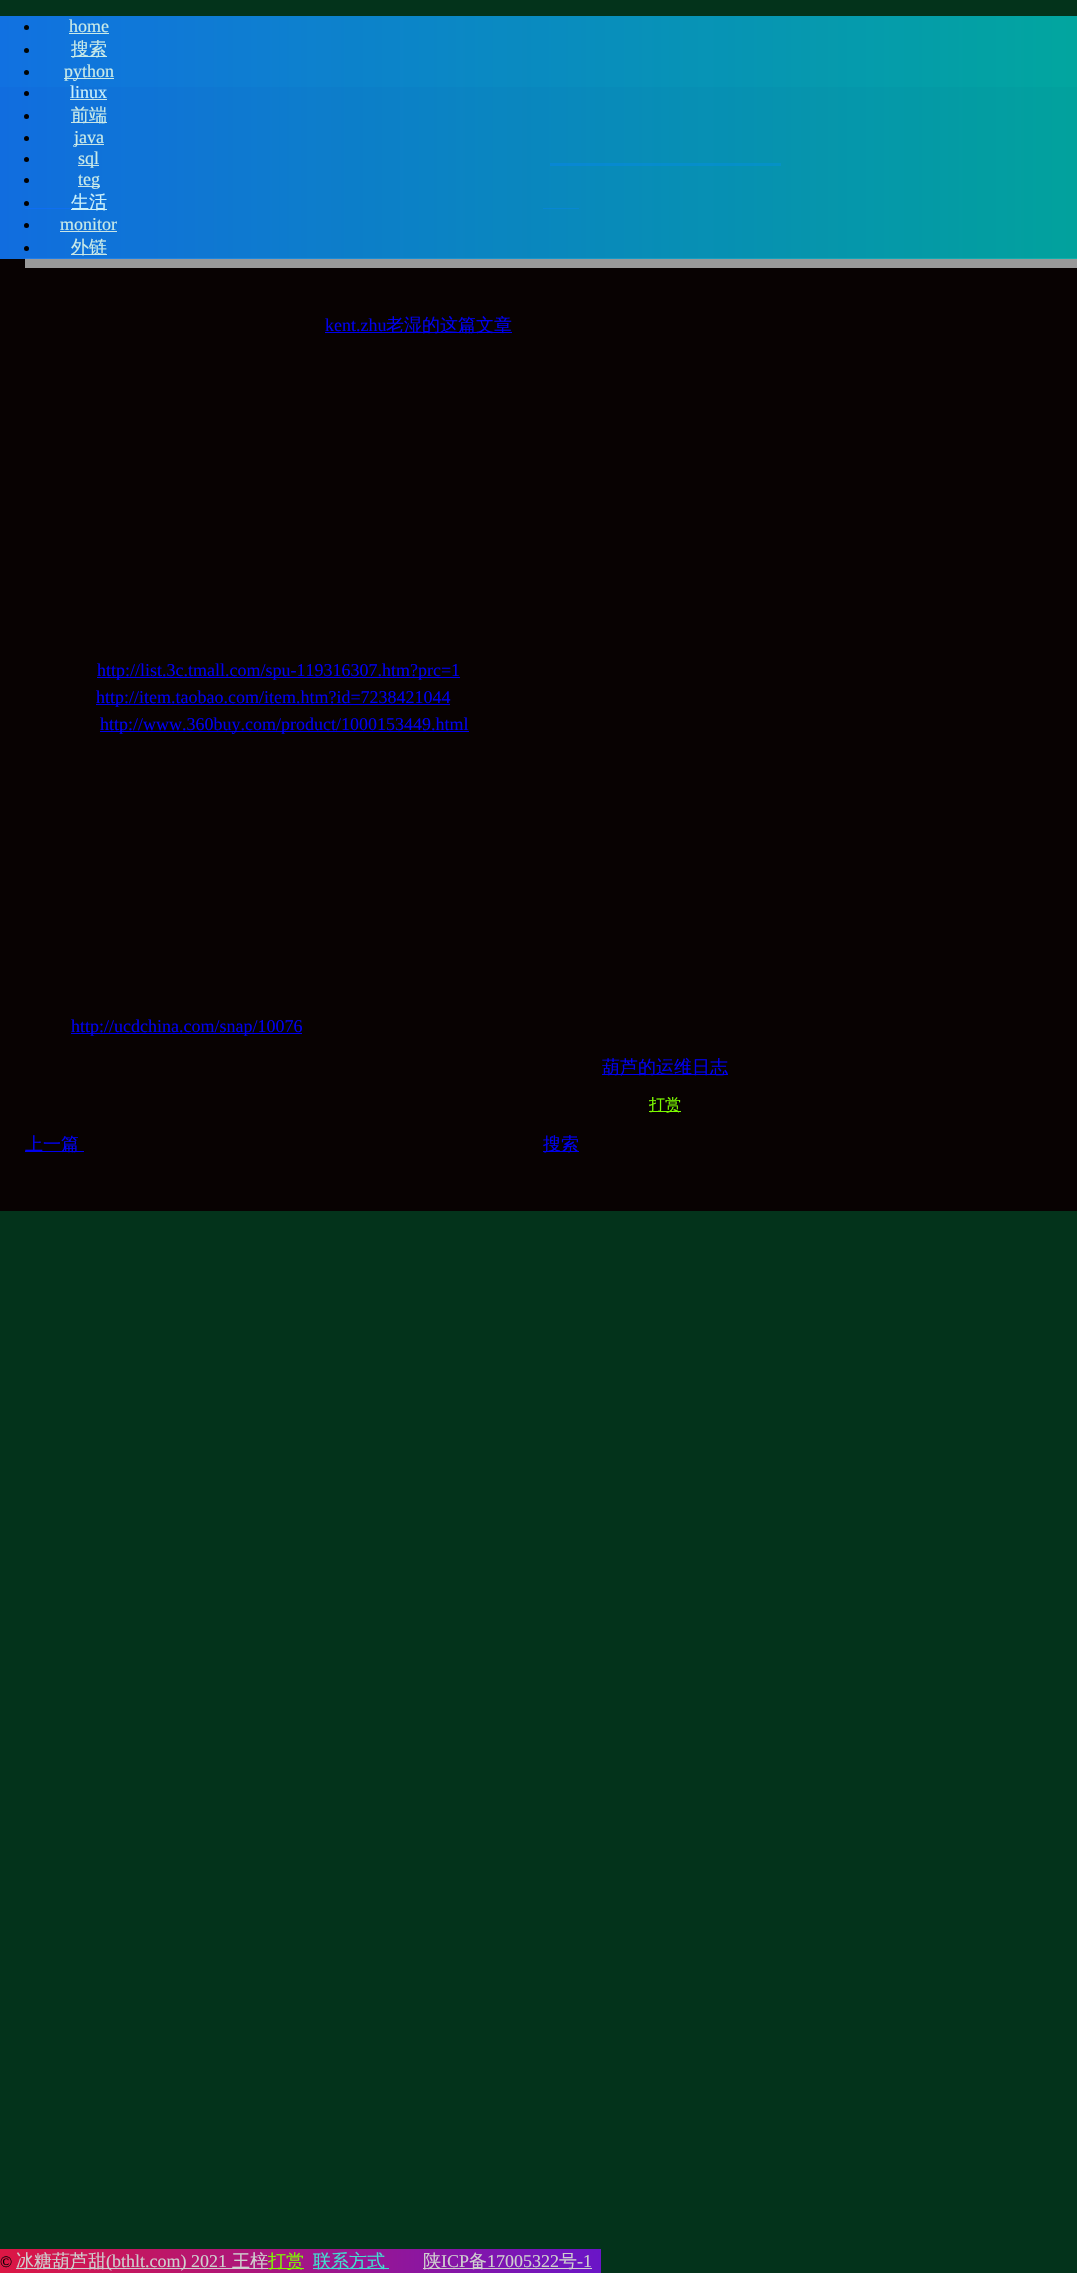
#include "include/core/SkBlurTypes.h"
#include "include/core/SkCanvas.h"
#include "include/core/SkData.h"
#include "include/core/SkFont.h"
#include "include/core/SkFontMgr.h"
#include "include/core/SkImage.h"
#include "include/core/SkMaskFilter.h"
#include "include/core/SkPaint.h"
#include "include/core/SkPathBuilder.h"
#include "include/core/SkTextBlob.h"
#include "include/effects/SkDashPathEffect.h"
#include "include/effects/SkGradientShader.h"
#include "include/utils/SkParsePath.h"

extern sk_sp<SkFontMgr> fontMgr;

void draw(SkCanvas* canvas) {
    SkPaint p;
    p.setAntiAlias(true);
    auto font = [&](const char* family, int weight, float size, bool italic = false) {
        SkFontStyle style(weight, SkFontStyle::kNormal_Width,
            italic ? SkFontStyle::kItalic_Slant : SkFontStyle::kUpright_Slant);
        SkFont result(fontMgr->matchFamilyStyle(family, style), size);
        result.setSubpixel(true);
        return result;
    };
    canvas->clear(0xFF03331B);
    {
        const struct { float l, t, r, b; SkColor color; } items[] = {
            {0, 87, 1077, 1211, 0xFF080202},
            {550, 163, 781, 166, 0xFF0000EE},
            {25, 208, 84, 209, 0xFF0000EE},
            {543, 208, 579, 209, 0xFF0000EE},
            {25, 258, 1077, 268, 0xFF999999},
        };
        for (auto [l, t, r, b, color] : items) {
            p.setColor(color);
            canvas->drawRect(SkRect::MakeLTRB(l, t, r, b), p);
        }
    }
    {
        const SkColor colors[] = {0xE61278F6, 0xE600B4AA};
        const float stops[] = {0, 1};
        const SkPoint ends[] = {{0, 16}, {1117, 16}};
        p.setShader(SkGradientShader::MakeLinear(ends, colors, stops, 2, SkTileMode::kClamp));
        p.setAlpha(255);
    }
    canvas->drawRect(SkRect::MakeLTRB(0, 16, 1077, 259), p);
    p.setShader(nullptr);
    p.setColor(0xFF000503);
    canvas->drawCircle(26.5f, 27.5f, 2.5f, p);
    auto font1 = font("Liberation Serif", 400, 18);
    p.setColor(0xFFCAEBE8);
    canvas->drawString("home", 69, 32, font1, p);
    canvas->drawRect(SkRect::MakeLTRB(69, 33, 109, 34), p);
    p.setColor(0xFF000503);
    canvas->drawCircle(26.5f, 50.5f, 2.5f, p);
    p.setColor(0xFFCAEBE8);
    canvas->drawRect(SkRect::MakeLTRB(71, 56, 107, 57), p);
    auto font2 = font("WenQuanYi Zen Hei", 500, 18);
    canvas->drawString("搜索", 71, 55, font2, p);
    p.setColor(0xFF000503);
    canvas->drawCircle(26.5f, 72.5f, 2.5f, p);
    p.setColor(0xFFCAEBE8);
    canvas->drawRect(SkRect::MakeLTRB(64, 78, 114, 79), p);
    canvas->drawString("python", 64, 77, font1, p);
    p.setColor(0xFF010000);
    canvas->drawCircle(26.5f, 93.5f, 2.5f, p);
    p.setColor(0xFFCBF1FB);
    canvas->drawString("linux", 70, 98, font1, p);
    p.setColor(0xFFCAE6E6);
    canvas->drawRect(SkRect::MakeLTRB(70, 99, 107, 100), p);
    p.setColor(0xFF010000);
    canvas->drawCircle(26.5f, 116.5f, 2.5f, p);
    p.setColor(0xFFCAE6E6);
    canvas->drawRect(SkRect::MakeLTRB(71, 122, 107, 123), p);
    p.setColor(0xFFCAEBE8);
    canvas->drawString("前端", 71, 121, font2, p);
    p.setColor(0xFF010000);
    canvas->drawCircle(26.5f, 138.5f, 2.5f, p);
    p.setColor(0xFFCAE6E6);
    canvas->drawRect(SkRect::MakeLTRB(74, 144, 104, 145), p);
    p.setColor(0xFFCAEBE8);
    canvas->drawString("java", 74, 143, font1, p);
    p.setColor(0xFF010000);
    canvas->drawCircle(26.5f, 159.5f, 2.5f, p);
    p.setColor(0xFFCAE6E6);
    canvas->drawRect(SkRect::MakeLTRB(78, 165, 99, 166), p);
    p.setColor(0xFFCAEBE8);
    canvas->drawString("sql", 78, 164, font1, p);
    p.setColor(0xFF010000);
    canvas->drawCircle(26.5f, 180.5f, 2.5f, p);
    p.setColor(0xFFCAE6E6);
    canvas->drawRect(SkRect::MakeLTRB(78, 186, 100, 187), p);
    p.setColor(0xFFCAEBE8);
    canvas->drawString("teg", 78, 185, font1, p);
    p.setColor(0xFF010000);
    canvas->drawCircle(26.5f, 203.5f, 2.5f, p);
    p.setColor(0xE6E0FFFF);
    canvas->drawRect(SkRect::MakeLTRB(71, 209, 107, 210), p);
    p.setColor(0xFFCBF1FB);
    canvas->drawString("生活", 71, 208, font2, p);
    p.setColor(0xFF010000);
    canvas->drawCircle(26.5f, 225.5f, 2.5f, p);
    p.setColor(0xFFCAEBE8);
    canvas->drawString("monitor", 60, 230, font1, p);
    p.setColor(0xFFCAE6E6);
    canvas->drawRect(SkRect::MakeLTRB(60, 231, 117, 232), p);
    p.setColor(0xFF010000);
    canvas->drawCircle(26.5f, 248.5f, 2.5f, p);
    p.setColor(0xFFCAE6E6);
    canvas->drawRect(SkRect::MakeLTRB(71, 254, 107, 255), p);
    p.setColor(0xFFCAEBE8);
    canvas->drawString("外链", 71, 253, font2, p);
    p.setColor(0xFF0000EE);
    canvas->drawString("kent.zhu", 325, 331, font1, p);
    canvas->drawRect(SkRect::MakeLTRB(325, 332, 512, 333), p);
    canvas->drawString("老湿的这篇文章", 386, 331, font2, p);
    canvas->drawRect(SkRect::MakeLTRB(97, 677, 460, 678), p);
    canvas->drawString("http://list.3c.tmall.com/spu-119316307.htm?prc=1", 97, 676, font1, p);
    canvas->drawRect(SkRect::MakeLTRB(96, 704, 450, 705), p);
    canvas->drawString("http://item.taobao.com/item.htm?id=7238421044", 96, 703, font1, p);
    canvas->drawRect(SkRect::MakeLTRB(100, 731, 469, 732), p);
    canvas->drawString("http://www.360buy.com/product/1000153449.html", 100, 730, font1, p);
    canvas->drawRect(SkRect::MakeLTRB(71, 1033, 302, 1034), p);
    canvas->drawString("http://ucdchina.com/snap/10076", 71, 1032, font1, p);
    canvas->drawRect(SkRect::MakeLTRB(602, 1074, 728, 1075), p);
    canvas->drawString("葫芦的运维日志", 602, 1073, font2, p);
    p.setColor(0xFF7CFC00);
    canvas->drawRect(SkRect::MakeLTRB(649, 1111, 681, 1112), p);
    auto font3 = font("WenQuanYi Zen Hei", 500, 16);
    canvas->drawString("打赏", 649, 1110, font3, p);
    p.setColor(0xFF0000EE);
    canvas->drawRect(SkRect::MakeLTRB(25, 1151, 84, 1152), p);
    canvas->drawString("上一篇", 25, 1150, font2, p);
    canvas->drawRect(SkRect::MakeLTRB(543, 1151, 579, 1152), p);
    canvas->drawString("搜索", 543, 1150, font2, p);
    {
        const SkColor colors[] = {0xFFDC1744, 0xFF6A15C7};
        const float stops[] = {0, 1};
        const SkPoint ends[] = {{0, 2249}, {601, 2249}};
        p.setShader(SkGradientShader::MakeLinear(ends, colors, stops, 2, SkTileMode::kClamp));
        p.setAlpha(255);
    }
    canvas->drawRect(SkRect::MakeLTRB(0, 2249, 601, 2273), p);
    auto font4 = font("Liberation Serif", 400, 16);
    p.setShader(nullptr);
    p.setColor(0xFF000000);
    canvas->drawString("©", 0, 2267, font4, p);
    p.setColor(0xFFCFCFCF);
    canvas->drawRect(SkRect::MakeLTRB(16, 2268, 268, 2269), p);
    canvas->drawString("冰糖葫芦甜", 16, 2267, font2, p);
    canvas->drawString("(bthlt.com) 2021", 106, 2267, font1, p);
    canvas->drawString("王梓", 232, 2267, font2, p);
    p.setColor(0xFF7CFC00);
    canvas->drawRect(SkRect::MakeLTRB(268, 2268, 304, 2269), p);
    canvas->drawString("打赏", 268, 2267, font2, p);
    p.setColor(0xFF40E0D0);
    canvas->drawRect(SkRect::MakeLTRB(313, 2268, 389, 2269), p);
    canvas->drawString("联系方式", 313, 2267, font2, p);
    p.setColor(0xFFCFCFCF);
    canvas->drawRect(SkRect::MakeLTRB(423, 2268, 592, 2269), p);
    canvas->drawString("陕", 423, 2267, font2, p);
    canvas->drawString("ICP", 441, 2267, font1, p);
    canvas->drawString("备", 469, 2267, font2, p);
    canvas->drawString("17005322", 487, 2267, font1, p);
    canvas->drawString("号", 559, 2267, font2, p);
    canvas->drawString("-1", 577, 2267, font1, p);
}
